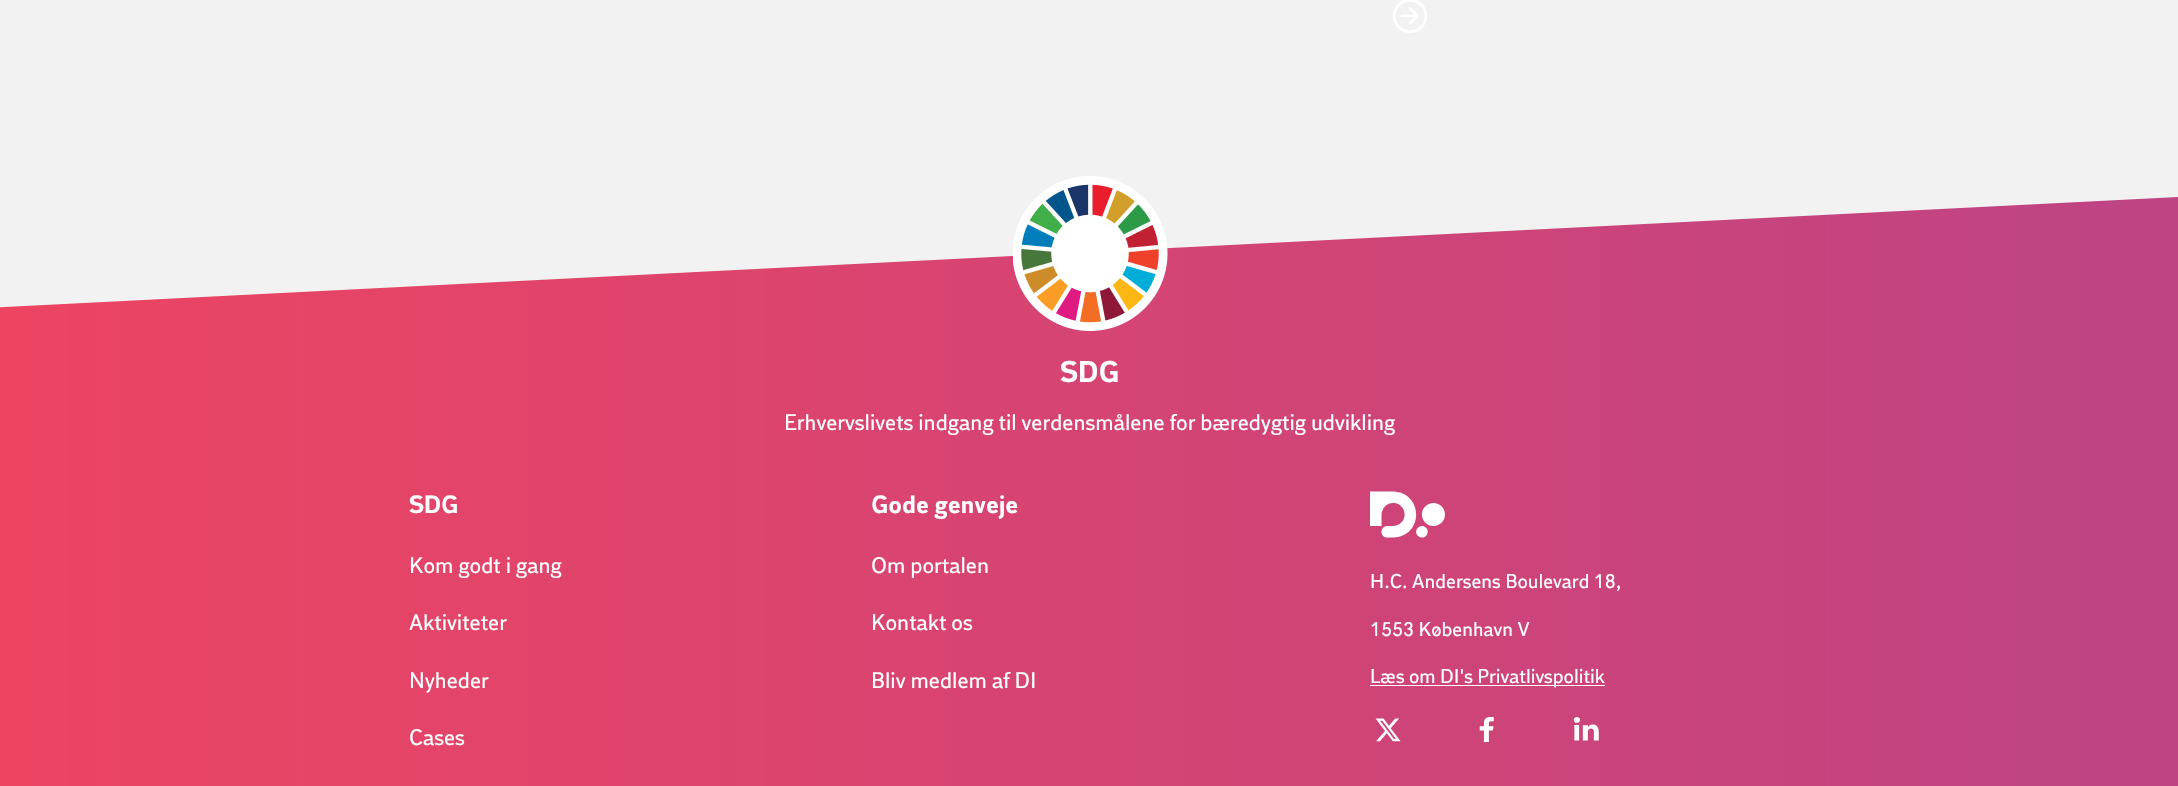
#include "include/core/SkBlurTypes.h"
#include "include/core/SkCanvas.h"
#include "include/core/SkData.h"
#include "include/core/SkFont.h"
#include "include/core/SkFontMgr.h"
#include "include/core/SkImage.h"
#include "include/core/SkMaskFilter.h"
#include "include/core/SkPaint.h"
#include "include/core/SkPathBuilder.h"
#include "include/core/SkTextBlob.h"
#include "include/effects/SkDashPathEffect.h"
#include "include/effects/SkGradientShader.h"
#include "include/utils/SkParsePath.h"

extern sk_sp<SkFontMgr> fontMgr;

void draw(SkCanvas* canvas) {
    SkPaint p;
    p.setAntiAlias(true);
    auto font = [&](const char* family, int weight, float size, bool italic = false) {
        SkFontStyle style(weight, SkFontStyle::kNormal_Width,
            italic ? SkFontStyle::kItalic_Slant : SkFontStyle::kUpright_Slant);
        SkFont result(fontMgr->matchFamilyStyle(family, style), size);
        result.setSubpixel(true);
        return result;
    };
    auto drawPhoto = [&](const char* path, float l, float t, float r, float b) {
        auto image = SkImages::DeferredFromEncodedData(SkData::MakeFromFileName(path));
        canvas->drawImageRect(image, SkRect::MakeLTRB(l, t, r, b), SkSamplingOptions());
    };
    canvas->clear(0xFFF2F2F2);
    drawPhoto("media/1.png", 1393, 0, 1427, 33);
    {
        const SkColor colors[] = {0xFFED4462, 0xFFBE4484};
        const float stops[] = {0, 1};
        const SkPoint ends[] = {{0, 666}, {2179, 666}};
        p.setShader(SkGradientShader::MakeLinear(ends, colors, stops, 2, SkTileMode::kClamp));
        p.setAlpha(255);
    }
    canvas->drawRect(SkRect::MakeLTRB(0, 197, 2178, 786), p);
    canvas->save();
    canvas->clipRect(SkRect::MakeLTRB(0, 195, 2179, 325));
    p.setShader(nullptr);
    p.setColor(0xFFF2F2F2);
    canvas->drawPath(SkPathBuilder(SkPathFillType::kEvenOdd).moveTo(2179, 197).lineTo(-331, 324).lineTo(-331, 194).lineTo(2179, 194).close().detach(), p);
    canvas->restore();
    drawPhoto("media/2.png", 1013, 176, 1168, 331);
    auto font1 = font("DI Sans", 700, 30);
    p.setColor(0xFFFFFFFF);
    canvas->drawString("SDG", 1060, 382, font1, p);
    auto font2 = font("DI Sans", 400, 22.5f);
    canvas->drawString("Erhvervslivets indgang til verdensmålene for bæredygtig udvikling", 784, 430, font2, p);
    auto font3 = font("DI Sans", 700, 25);
    canvas->drawString("SDG", 409, 513, font3, p);
    {
        const struct { const char* s; float x, y; } items[] = {
            {"Kom godt i gang", 409, 573},
            {"Aktiviteter", 409, 630},
            {"Nyheder", 409, 688},
            {"Cases", 409, 745},
        };
        for (auto [s, x, y] : items) {
            canvas->drawString(s, x, y, font2, p);
        }
    }
    canvas->drawString("Gode genveje", 871, 513, font3, p);
    {
        const struct { const char* s; float x, y; } items[] = {
            {"Om portalen", 871, 573},
            {"Kontakt os", 871, 630},
            {"Bliv medlem af DI", 871, 688},
        };
        for (auto [s, x, y] : items) {
            canvas->drawString(s, x, y, font2, p);
        }
    }
    drawPhoto("media/3.png", 1370, 491, 1445, 538);
    auto font4 = font("DI Sans", 400, 20);
    canvas->drawString("H.C. Andersens Boulevard 18,", 1370, 588, font4, p);
    canvas->drawString("1553 København V", 1370, 636, font4, p);
    canvas->drawRect(SkRect::MakeLTRB(1370, 685, 1605, 686), p);
    canvas->drawString("Læs om DI's Privatlivspolitik", 1370, 683, font4, p);
    drawPhoto("media/4.png", 1375, 718, 1401, 742);
    drawPhoto("media/5.png", 1479, 717, 1494, 742);
    drawPhoto("media/6.png", 1573, 717, 1599, 741);
}
